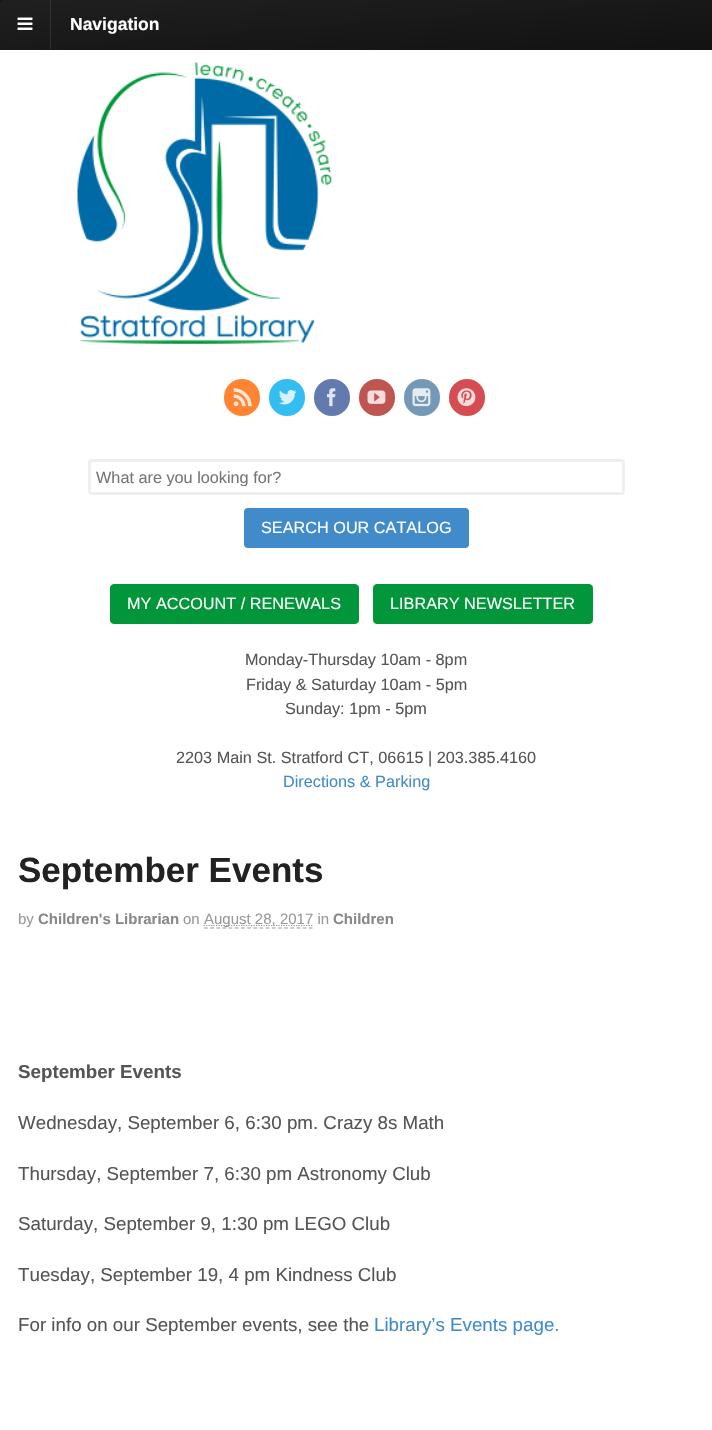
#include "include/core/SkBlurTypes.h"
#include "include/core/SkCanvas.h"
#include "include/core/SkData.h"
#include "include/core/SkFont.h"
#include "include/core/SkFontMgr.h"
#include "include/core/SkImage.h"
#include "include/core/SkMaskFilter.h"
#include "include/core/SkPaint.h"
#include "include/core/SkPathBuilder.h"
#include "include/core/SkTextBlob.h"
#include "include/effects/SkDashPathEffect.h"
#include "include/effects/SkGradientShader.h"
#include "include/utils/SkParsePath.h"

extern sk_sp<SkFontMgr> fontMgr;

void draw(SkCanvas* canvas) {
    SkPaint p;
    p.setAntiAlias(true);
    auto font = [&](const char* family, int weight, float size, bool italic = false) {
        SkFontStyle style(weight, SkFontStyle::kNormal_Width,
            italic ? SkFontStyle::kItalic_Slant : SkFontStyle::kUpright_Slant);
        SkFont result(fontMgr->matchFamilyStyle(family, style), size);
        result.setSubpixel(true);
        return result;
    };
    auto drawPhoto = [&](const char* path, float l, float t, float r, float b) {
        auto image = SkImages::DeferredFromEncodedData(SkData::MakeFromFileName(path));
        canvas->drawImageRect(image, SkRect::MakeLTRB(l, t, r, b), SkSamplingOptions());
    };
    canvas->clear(0xFF7F92AD);
    p.setColor(0x1A000000);
    p.setMaskFilter(SkMaskFilter::MakeBlur(kNormal_SkBlurStyle, 3));
    canvas->drawRoundRect(SkRect::MakeLTRB(0, 1, 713, 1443), 4, 4, p);
    p.setMaskFilter(nullptr);
    p.setColor(0xFFFFFFFF);
    canvas->drawRoundRect(SkRect::MakeLTRB(0, 0, 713, 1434), 4, 4, p);
    p.setColor(0xA6000000);
    canvas->drawRect(SkRect::MakeLTRB(0, 0, 712, 49), p);
    {
        const SkColor colors[] = {0xA6000000, 0xCC000000};
        const float stops[] = {0, 1};
        const SkPoint ends[] = {{353, -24}, {360, 73}};
        p.setShader(SkGradientShader::MakeLinear(ends, colors, stops, 2, SkTileMode::kClamp));
        p.setAlpha(255);
    }
    canvas->drawRect(SkRect::MakeLTRB(0, 0, 712, 49), p);
    {
        const SkColor colors[] = {0xFF1F1F1F, 0xFF121212};
        const float stops[] = {0, 1};
        const SkPoint ends[] = {{353, 25}, {360, 122}};
        p.setShader(SkGradientShader::MakeLinear(ends, colors, stops, 2, SkTileMode::kClamp));
        p.setAlpha(255);
    }
    canvas->drawRect(SkRect::MakeLTRB(0, 49, 712, 50), p);
    p.setShader(nullptr);
    p.setColor(0x33000000);
    canvas->drawRect(SkRect::MakeLTRB(0, 49, 712, 50), p);
    p.setColor(0x1AFFFFFF);
    canvas->drawRect(SkRect::MakeLTRB(50, 0, 51, 49), p);
    drawPhoto("media/1.png", 17, 17, 33, 30);
    auto font1 = font("Liberation Sans", 700, 17.5f);
    p.setColor(0xFFFFFFFF);
    canvas->drawString("Navigation", 70, 30, font1, p);
    p.setColor(0x1A000000);
    canvas->drawRect(SkRect::MakeLTRB(51, 5, 52, 43), p);
    drawPhoto("media/2.png", 77, 62, 332, 344);
    p.setColor(0xFFFF8533);
    canvas->drawRoundRect(SkRect::MakeLTRB(224, 379, 260, 416), 18, 18, p);
    drawPhoto("media/3.png", 233, 388, 252, 407);
    p.setColor(0xFF33BDF1);
    canvas->drawRoundRect(SkRect::MakeLTRB(269, 379, 305, 416), 18, 18, p);
    drawPhoto("media/4.png", 279, 389, 297, 405);
    p.setColor(0xFF627AAD);
    canvas->drawRoundRect(SkRect::MakeLTRB(314, 379, 350, 416), 18, 18, p);
    drawPhoto("media/5.png", 327, 388, 336, 407);
    p.setColor(0xFFBF5551);
    canvas->drawRoundRect(SkRect::MakeLTRB(359, 379, 395, 416), 18, 18, p);
    drawPhoto("media/6.png", 367, 390, 386, 404);
    p.setColor(0xFF7499B6);
    canvas->drawRoundRect(SkRect::MakeLTRB(404, 379, 440, 416), 18, 18, p);
    drawPhoto("media/7.png", 412, 388, 431, 407);
    p.setColor(0xFFD54D52);
    canvas->drawRoundRect(SkRect::MakeLTRB(449, 379, 485, 416), 18, 18, p);
    drawPhoto("media/8.png", 457, 388, 476, 407);
    p.setStyle(SkPaint::kStroke_Style);
    p.setStrokeWidth(3);
    p.setColor(0xFFEFEFEF);
    canvas->drawRoundRect(SkRect::MakeLTRB(89.5f, 460.5f, 623.5f, 493.5f), 2.5f, 2.5f, p);
    canvas->save();
    canvas->clipRect(SkRect::MakeLTRB(96, 468, 616, 486));
    auto font2 = font("Liberation Sans", 400, 16.25f);
    p.setStyle(SkPaint::kFill_Style);
    p.setColor(0xFF757575);
    canvas->drawString("What are you looking for?", 96, 483, font2, p);
    canvas->restore();
    p.setColor(0xFF428BCA);
    canvas->drawRoundRect(SkRect::MakeLTRB(244, 508, 469, 548), 4, 4, p);
    p.setColor(0xFFFFFFFF);
    canvas->drawString("SEARCH OUR CATALOG", 261, 533, font2, p);
    p.setColor(0xFF009639);
    canvas->drawRoundRect(SkRect::MakeLTRB(110.5f, 584.5f, 358.5f, 623.5f), 3.5f, 3.5f, p);
    p.setStyle(SkPaint::kStroke_Style);
    p.setStrokeWidth(1);
    canvas->drawRoundRect(SkRect::MakeLTRB(110.5f, 584.5f, 358.5f, 623.5f), 3.5f, 3.5f, p);
    p.setStyle(SkPaint::kFill_Style);
    p.setColor(0xFFFFFFFF);
    canvas->drawString("MY ACCOUNT / RENEWALS", 127, 609, font2, p);
    p.setColor(0xFF009639);
    canvas->drawRoundRect(SkRect::MakeLTRB(373.5f, 584.5f, 592.5f, 623.5f), 3.5f, 3.5f, p);
    p.setStyle(SkPaint::kStroke_Style);
    canvas->drawRoundRect(SkRect::MakeLTRB(373.5f, 584.5f, 592.5f, 623.5f), 3.5f, 3.5f, p);
    p.setStyle(SkPaint::kFill_Style);
    p.setColor(0xFFFFFFFF);
    canvas->drawString("LIBRARY NEWSLETTER", 390, 609, font2, p);
    p.setColor(0xFF555555);
    {
        const struct { const char* s; float x, y; } items[] = {
            {"Monday-Thursday 10am - 8pm", 245, 665},
            {"Friday & Saturday 10am - 5pm", 246, 690},
            {"Sunday: 1pm - 5pm", 285, 714},
            {"2203 Main St. Stratford CT, 06615 | 203.385.4160", 176, 763},
        };
        for (auto [s, x, y] : items) {
            canvas->drawString(s, x, y, font2, p);
        }
    }
    p.setColor(0xFF428BCA);
    canvas->drawString("Directions & Parking", 283, 787, font2, p);
    auto font3 = font("Liberation Sans", 700, 35);
    p.setColor(0xFF222222);
    canvas->drawString("September Events", 18, 882, font3, p);
    auto font4 = font("Liberation Sans", 400, 15);
    p.setColor(0xFF999999);
    canvas->drawString("by", 18, 924, font4, p);
    auto font5 = font("Liberation Sans", 700, 15);
    p.setColor(0xFF888888);
    canvas->drawString("Children's Librarian", 38, 924, font5, p);
    p.setColor(0xFF999999);
    canvas->drawString("on", 183, 924, font4, p);
    p.setStyle(SkPaint::kStroke_Style);
    p.setStrokeWidth(1.2f);
    p.setPathEffect(SkDashPathEffect::Make({{3.75f, 2.42f}}, 0));
    canvas->drawPath(SkPathBuilder().moveTo(204, 928).lineTo(312.5f, 928).detach(), p);
    p.setPathEffect(nullptr);
    p.setPathEffect(SkDashPathEffect::Make({{1.25f, 1.25f}}, 0));
    canvas->drawPath(SkPathBuilder().moveTo(203.5f, 925.5f).lineTo(313, 925.5f).detach(), p);
    p.setPathEffect(nullptr);
    p.setStyle(SkPaint::kFill_Style);
    canvas->drawString("August 28, 2017 in", 204, 924, font4, p);
    p.setColor(0xFF888888);
    canvas->drawString("Children", 333, 924, font5, p);
    auto font6 = font("Liberation Sans", 700, 18.75f);
    p.setColor(0xFF555555);
    canvas->drawString("September Events", 18, 1078, font6, p);
    auto font7 = font("Liberation Sans", 400, 18.75f);
    {
        const struct { const char* s; float x, y; } items[] = {
            {"Wednesday, September 6, 6:30 pm. Crazy 8s Math", 18, 1129},
            {"Thursday, September 7, 6:30 pm Astronomy Club", 18, 1180},
            {"Saturday, September 9, 1:30 pm LEGO Club", 18, 1230},
            {"Tuesday, September 19, 4 pm Kindness Club", 18, 1281},
            {"For info on our September events, see the", 18, 1331},
        };
        for (auto [s, x, y] : items) {
            canvas->drawString(s, x, y, font7, p);
        }
    }
    p.setColor(0xFF428BCA);
    canvas->drawString("Library’s Events page.", 374, 1331, font7, p);
}
